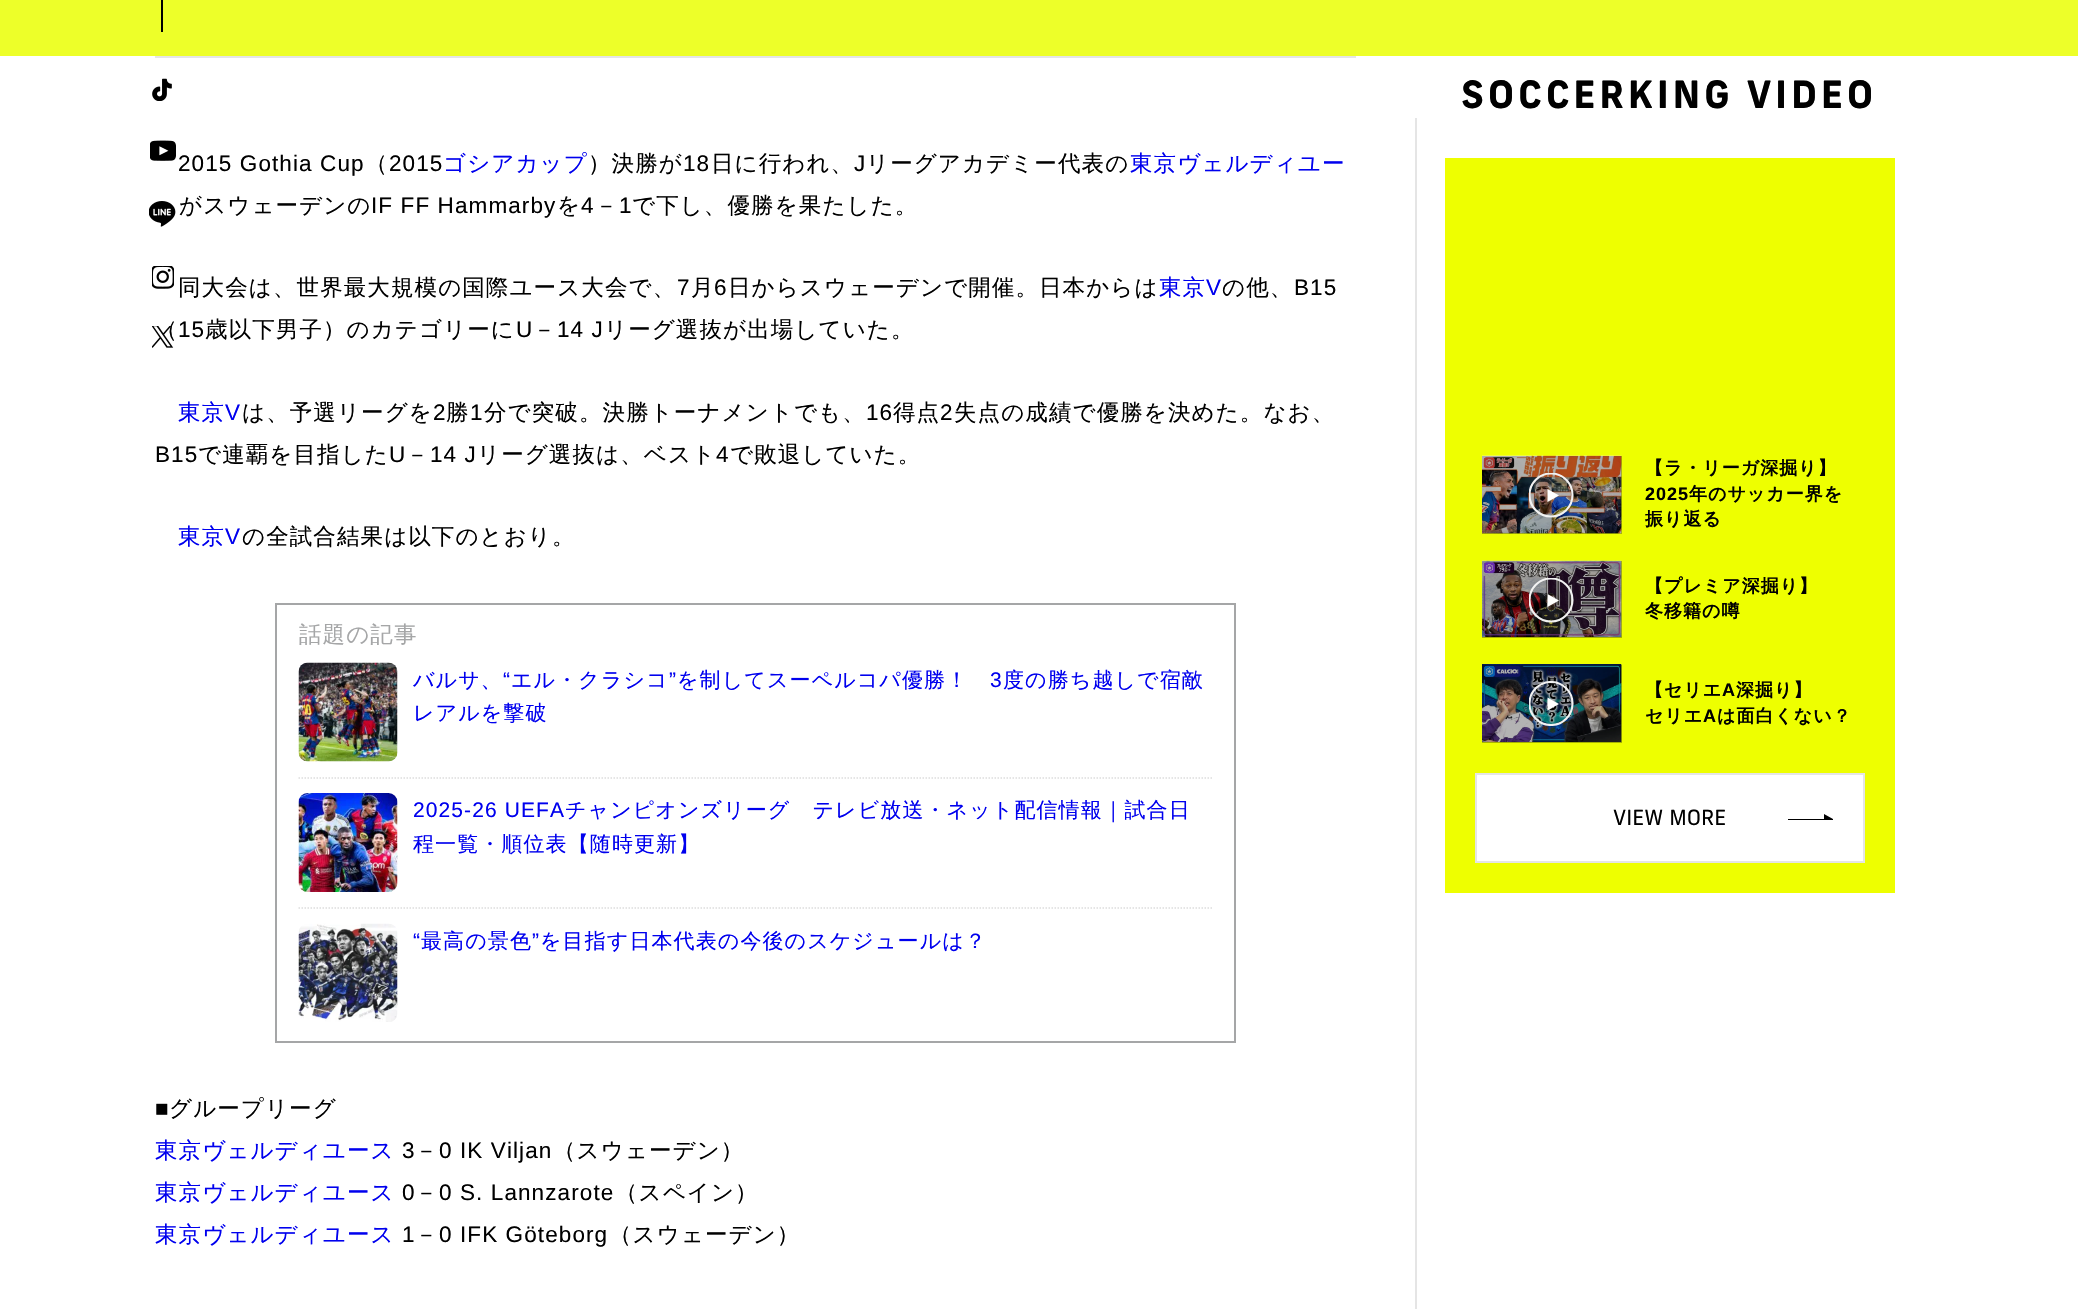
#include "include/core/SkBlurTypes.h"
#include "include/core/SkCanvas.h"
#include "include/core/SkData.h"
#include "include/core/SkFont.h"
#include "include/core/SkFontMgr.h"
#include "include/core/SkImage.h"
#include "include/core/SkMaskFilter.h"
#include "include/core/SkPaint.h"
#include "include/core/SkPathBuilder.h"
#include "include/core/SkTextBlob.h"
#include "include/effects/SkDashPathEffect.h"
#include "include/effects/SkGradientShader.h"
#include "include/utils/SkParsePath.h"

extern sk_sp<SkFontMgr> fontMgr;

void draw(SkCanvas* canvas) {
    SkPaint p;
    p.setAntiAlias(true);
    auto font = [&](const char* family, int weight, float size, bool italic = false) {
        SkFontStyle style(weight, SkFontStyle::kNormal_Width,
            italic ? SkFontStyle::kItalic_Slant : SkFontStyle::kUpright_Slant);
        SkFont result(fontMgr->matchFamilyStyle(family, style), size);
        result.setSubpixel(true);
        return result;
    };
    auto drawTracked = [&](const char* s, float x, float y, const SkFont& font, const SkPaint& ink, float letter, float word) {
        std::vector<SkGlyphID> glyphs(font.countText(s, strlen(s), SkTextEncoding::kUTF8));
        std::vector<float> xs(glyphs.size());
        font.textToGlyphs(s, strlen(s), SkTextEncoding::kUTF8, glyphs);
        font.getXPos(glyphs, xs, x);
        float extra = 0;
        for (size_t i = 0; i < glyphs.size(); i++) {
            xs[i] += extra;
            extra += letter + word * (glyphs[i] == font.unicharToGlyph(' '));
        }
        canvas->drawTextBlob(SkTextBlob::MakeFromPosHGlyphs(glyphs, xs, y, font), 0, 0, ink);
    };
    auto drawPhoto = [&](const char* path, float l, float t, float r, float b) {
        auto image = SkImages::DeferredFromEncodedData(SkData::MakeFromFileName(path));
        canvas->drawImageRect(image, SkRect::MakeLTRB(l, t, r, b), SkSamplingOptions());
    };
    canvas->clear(0xFFFFFFFF);
    p.setColor(0xFFEDFF29);
    canvas->drawRect(SkRect::MakeLTRB(0, 0, 2078, 56), p);
    p.setColor(0xFF000000);
    canvas->drawRect(SkRect::MakeLTRB(161, 0, 163, 32), p);
    drawPhoto("media/1.png", 152, 78, 172, 101);
    drawPhoto("media/2.png", 150, 140, 176, 161);
    drawPhoto("media/3.png", 149, 201, 176, 227);
    drawPhoto("media/4.png", 152, 266, 174, 289);
    auto font1 = font("WenQuanYi Zen Hei", 500, 22.5f);
    drawTracked("（", 155, 337, font1, p, 1.1f, 0);
    drawPhoto("media/5.png", 152, 326, 174, 348);
    p.setColor(0xFFE5E5E5);
    canvas->drawRect(SkRect::MakeLTRB(155, 56, 1356, 58), p);
    auto font2 = font("Liberation Sans", 400, 22.5f);
    p.setColor(0xFF000000);
    drawTracked("2015 Gothia Cup", 178, 171, font2, p, 1.1f, 0);
    drawTracked("（", 365, 171, font1, p, 1.1f, 0);
    drawTracked("2015", 389, 171, font2, p, 1.1f, 0);
    p.setColor(0xFF0000EE);
    drawTracked("ゴシアカップ", 443, 171, font1, p, 1.1f, 0);
    p.setColor(0xFF000000);
    drawTracked("）決勝が", 588, 171, font1, p, 1.1f, 0);
    drawTracked("18", 683, 171, font2, p, 1.1f, 0);
    drawTracked("日に行われ、", 711, 171, font1, p, 1.1f, 0);
    drawTracked("J", 854, 171, font2, p, 1.1f, 0);
    drawTracked("リーグアカデミー代表の", 866, 171, font1, p, 1.1f, 0);
    p.setColor(0xFF0000EE);
    drawTracked("東京ヴェルディユー", 1130, 171, font1, p, 1.1f, 0);
    p.setColor(0xFF000000);
    drawTracked("がスウェーデンの", 179, 213, font1, p, 1.1f, 0);
    drawTracked("IF FF Hammarby", 371, 213, font2, p, 1.1f, 0);
    drawTracked("を", 557, 213, font1, p, 1.1f, 0);
    drawTracked("4", 581, 213, font2, p, 1.1f, 0);
    drawTracked("－", 595, 213, font1, p, 1.1f, 0);
    drawTracked("1", 619, 213, font2, p, 1.1f, 0);
    drawTracked("で下し、優勝を果たした。", 632, 213, font1, p, 1.1f, 0);
    drawTracked("同大会は、世界最大規模の国際ユース大会で、", 178, 295, font1, p, 1.1f, 0);
    drawTracked("7", 677, 295, font2, p, 1.1f, 0);
    drawTracked("月", 691, 295, font1, p, 1.1f, 0);
    drawTracked("6", 714, 295, font2, p, 1.1f, 0);
    drawTracked("日からスウェーデンで開催。日本からは", 728, 295, font1, p, 1.1f, 0);
    p.setColor(0xFF0000EE);
    drawTracked("東京", 1159, 295, font1, p, 1.1f, 0);
    drawTracked("V", 1206, 295, font2, p, 1.1f, 0);
    p.setColor(0xFF000000);
    drawTracked("の他、", 1222, 295, font1, p, 1.1f, 0);
    drawTracked("B15", 1294, 295, font2, p, 1.1f, 0);
    drawTracked("15", 178, 337, font2, p, 1.1f, 0);
    drawTracked("歳以下男子）のカテゴリーに", 205, 337, font1, p, 1.1f, 0);
    drawTracked("U", 516, 337, font2, p, 1.1f, 0);
    drawTracked("－", 533, 337, font1, p, 1.1f, 0);
    drawTracked("14 J", 557, 337, font2, p, 1.1f, 0);
    drawTracked("リーグ選抜が出場していた。", 604, 337, font1, p, 1.1f, 0);
    p.setColor(0xFF0000EE);
    drawTracked("東京", 178, 420, font1, p, 1.1f, 0);
    drawTracked("V", 225, 420, font2, p, 1.1f, 0);
    p.setColor(0xFF000000);
    drawTracked("は、予選リーグを", 242, 420, font1, p, 1.1f, 0);
    drawTracked("2", 433, 420, font2, p, 1.1f, 0);
    drawTracked("勝", 446, 420, font1, p, 1.1f, 0);
    drawTracked("1", 470, 420, font2, p, 1.1f, 0);
    drawTracked("分で突破。決勝トーナメントでも、", 484, 420, font1, p, 1.1f, 0);
    drawTracked("16", 866, 420, font2, p, 1.1f, 0);
    drawTracked("得点", 893, 420, font1, p, 1.1f, 0);
    drawTracked("2", 940, 420, font2, p, 1.1f, 0);
    drawTracked("失点の成績で優勝を決めた。なお、", 954, 420, font1, p, 1.1f, 0);
    drawTracked("B15", 155, 462, font2, p, 1.1f, 0);
    drawTracked("で連覇を目指した", 198, 462, font1, p, 1.1f, 0);
    drawTracked("U", 389, 462, font2, p, 1.1f, 0);
    drawTracked("－", 406, 462, font1, p, 1.1f, 0);
    drawTracked("14 J", 430, 462, font2, p, 1.1f, 0);
    drawTracked("リーグ選抜は、ベスト", 477, 462, font1, p, 1.1f, 0);
    drawTracked("4", 716, 462, font2, p, 1.1f, 0);
    drawTracked("で敗退していた。", 730, 462, font1, p, 1.1f, 0);
    p.setColor(0xFF0000EE);
    drawTracked("東京", 178, 544, font1, p, 1.1f, 0);
    drawTracked("V", 225, 544, font2, p, 1.1f, 0);
    p.setColor(0xFF000000);
    drawTracked("の全試合結果は以下のとおり。", 242, 544, font1, p, 1.1f, 0);
    p.setStyle(SkPaint::kStroke_Style);
    p.setStrokeWidth(2);
    p.setColor(0xFFA5A6A7);
    canvas->drawRect(SkRect::MakeLTRB(276, 604, 1235, 1042), p);
    p.setStyle(SkPaint::kFill_Style);
    drawTracked("話題の記事", 299, 642, font1, p, 1.1f, 0);
    p.setStyle(SkPaint::kStroke_Style);
    p.setStrokeWidth(1.5f);
    p.setColor(0xFFDDDDDD);
    p.setPathEffect(SkDashPathEffect::Make({{1.5f, 1.5f}}, 0));
    canvas->drawPath(SkPathBuilder().moveTo(298.5f, 778).lineTo(1212, 778).detach(), p);
    p.setPathEffect(nullptr);
    drawPhoto("media/6.png", 298, 662, 398, 762);
    auto font3 = font("WenQuanYi Zen Hei", 500, 21);
    p.setStyle(SkPaint::kFill_Style);
    p.setColor(0xFF0000EE);
    drawTracked("バルサ、", 413, 687, font3, p, 1.1f, 0);
    auto font4 = font("Liberation Sans", 400, 21);
    drawTracked("“", 503, 687, font4, p, 1.1f, 0);
    drawTracked("エル・クラシコ", 511, 687, font3, p, 1.1f, 0);
    drawTracked("”", 669, 687, font4, p, 1.1f, 0);
    drawTracked("を制してスーペルコパ優勝！", 677, 687, font3, p, 1.1f, 0);
    drawTracked("3", 990, 687, font4, p, 1.1f, 0);
    drawTracked("度の勝ち越しで宿敵", 1003, 687, font3, p, 1.1f, 0);
    drawTracked("レアルを撃破", 413, 720, font3, p, 1.1f, 0);
    p.setStyle(SkPaint::kStroke_Style);
    p.setColor(0xFFDDDDDD);
    p.setPathEffect(SkDashPathEffect::Make({{1.5f, 1.5f}}, 0));
    canvas->drawPath(SkPathBuilder().moveTo(298.5f, 908).lineTo(1212, 908).detach(), p);
    p.setPathEffect(nullptr);
    drawPhoto("media/7.png", 298, 793, 398, 892);
    p.setStyle(SkPaint::kFill_Style);
    p.setColor(0xFF0000EE);
    drawTracked("2025-26 UEFA", 413, 817, font4, p, 1.1f, 0);
    drawTracked("チャンピオンズリーグ　テレビ放送・ネット配信情報｜試合日", 565, 817, font3, p, 1.1f, 0);
    drawTracked("程一覧・順位表【随時更新】", 413, 851, font3, p, 1.1f, 0);
    drawPhoto("media/8.png", 298, 923, 398, 1022);
    drawTracked("“", 413, 948, font4, p, 1.1f, 0);
    drawTracked("最高の景色", 421, 948, font3, p, 1.1f, 0);
    drawTracked("”", 532, 948, font4, p, 1.1f, 0);
    drawTracked("を目指す日本代表の今後のスケジュールは？", 540, 948, font3, p, 1.1f, 0);
    p.setColor(0xFF000000);
    drawTracked("■", 155, 1116, font2, p, 1.1f, 0);
    drawTracked("グループリーグ", 169, 1116, font1, p, 1.1f, 0);
    p.setColor(0xFF0000EE);
    drawTracked("東京ヴェルディユース", 155, 1158, font1, p, 1.1f, 0);
    p.setColor(0xFF000000);
    drawTracked("3", 402, 1158, font2, p, 1.1f, 0);
    drawTracked("－", 415, 1158, font1, p, 1.1f, 0);
    drawTracked("0 IK Viljan", 439, 1158, font2, p, 1.1f, 0);
    drawTracked("（スウェーデン）", 553, 1158, font1, p, 1.1f, 0);
    p.setColor(0xFF0000EE);
    drawTracked("東京ヴェルディユース", 155, 1200, font1, p, 1.1f, 0);
    p.setColor(0xFF000000);
    drawTracked("0", 402, 1200, font2, p, 1.1f, 0);
    drawTracked("－", 415, 1200, font1, p, 1.1f, 0);
    drawTracked("0 S. Lannzarote", 439, 1200, font2, p, 1.1f, 0);
    drawTracked("（スペイン）", 615, 1200, font1, p, 1.1f, 0);
    p.setColor(0xFF0000EE);
    drawTracked("東京ヴェルディユース", 155, 1242, font1, p, 1.1f, 0);
    p.setColor(0xFF000000);
    drawTracked("1", 402, 1242, font2, p, 1.1f, 0);
    drawTracked("－", 415, 1242, font1, p, 1.1f, 0);
    drawTracked("0 IFK Göteborg", 439, 1242, font2, p, 1.1f, 0);
    drawTracked("（スウェーデン）", 609, 1242, font1, p, 1.1f, 0);
    {
        const SkColor colors[] = {0x00000000, 0x00E5E5E5, 0xFFE5E5E5, 0xFFE5E5E5};
        const float stops[] = {0, 0.02f, 0.02f, 1};
        const SkPoint ends[] = {{1415, 3}, {1415, 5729}};
        p.setShader(SkGradientShader::MakeLinear(ends, colors, stops, 4, SkTileMode::kClamp));
        p.setAlpha(255);
    }
    canvas->drawRect(SkRect::MakeLTRB(1415, 118, 1417, 1309), p);
    auto font5 = font("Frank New", 700, 37.5f);
    p.setShader(nullptr);
    p.setColor(0xFF000000);
    drawTracked("SOCCERKING VIDEO", 1461, 108, font5, p, 3.75f, 0);
    {
        const struct { float l, t, r, b; SkColor color; } items[] = {
            {1445, 158, 1895, 893, 0xFFEEFF00},
            {1482, 665, 1622, 743, 0xFFA7B300},
            {1482, 561, 1622, 638, 0xFFA7B300},
            {1482, 456, 1622, 534, 0xFFA7B300},
        };
        for (auto [l, t, r, b, color] : items) {
            p.setColor(color);
            canvas->drawRect(SkRect::MakeLTRB(l, t, r, b), p);
        }
    }
    drawPhoto("media/9.png", 1482, 455, 1622, 534);
    p.setColor(0xFFFFFFFF);
    canvas->drawPath(SkPathBuilder(SkPathFillType::kEvenOdd).moveTo(1559, 495.5f).lineTo(1547.5f, 502).lineTo(1547.5f, 489).close().detach(), p);
    canvas->save();
    canvas->clipRect(SkRect::MakeLTRB(1529, 473, 1574, 518));
    p.setStyle(SkPaint::kStroke_Style);
    p.setStrokeWidth(2.1f);
    p.setColor(0xFFF2F2F2);
    canvas->drawCircle(1551, 495, 21.5f, p);
    canvas->restore();
    auto font6 = font("WenQuanYi Zen Hei", 700, 18);
    p.setStyle(SkPaint::kFill_Style);
    p.setColor(0xFF000000);
    drawTracked("【ラ・リーガ深掘り】", 1645, 474, font6, p, 1, 0);
    auto font7 = font("Liberation Sans", 700, 18);
    drawTracked("2025", 1645, 500, font7, p, 1, 0);
    drawTracked("年のサッカー界を", 1689, 500, font6, p, 1, 0);
    drawTracked("振り返る", 1645, 525, font6, p, 1, 0);
    drawPhoto("media/10.png", 1482, 560, 1622, 637);
    p.setColor(0xFFFFFFFF);
    canvas->drawPath(SkPathBuilder(SkPathFillType::kEvenOdd).moveTo(1559, 600.5f).lineTo(1547.5f, 607).lineTo(1547.5f, 594).close().detach(), p);
    canvas->save();
    canvas->clipRect(SkRect::MakeLTRB(1529, 578, 1574, 623));
    p.setStyle(SkPaint::kStroke_Style);
    p.setColor(0xFFF2F2F2);
    canvas->drawCircle(1551, 600, 21.5f, p);
    canvas->restore();
    p.setStyle(SkPaint::kFill_Style);
    p.setColor(0xFF000000);
    drawTracked("【プレミア深掘り】", 1645, 592, font6, p, 1, 0);
    drawTracked("冬移籍の噂", 1645, 617, font6, p, 1, 0);
    drawPhoto("media/11.png", 1482, 664, 1622, 742);
    p.setColor(0xFFFFFFFF);
    canvas->drawPath(SkPathBuilder(SkPathFillType::kEvenOdd).moveTo(1559, 704).lineTo(1547.5f, 710.5f).lineTo(1547.5f, 697.5f).close().detach(), p);
    canvas->save();
    canvas->clipRect(SkRect::MakeLTRB(1529, 681, 1574, 726));
    p.setStyle(SkPaint::kStroke_Style);
    p.setColor(0xFFF2F2F2);
    canvas->drawCircle(1551, 703.5f, 21.5f, p);
    canvas->restore();
    p.setStyle(SkPaint::kFill_Style);
    p.setColor(0xFF000000);
    drawTracked("【セリエ", 1645, 696, font6, p, 1, 0);
    drawTracked("A", 1722, 696, font7, p, 1, 0);
    drawTracked("深掘り】", 1736, 696, font6, p, 1, 0);
    drawTracked("セリエ", 1645, 722, font6, p, 1, 0);
    drawTracked("A", 1703, 722, font7, p, 1, 0);
    drawTracked("は面白くない？", 1717, 722, font6, p, 1, 0);
    p.setColor(0xFFFFFFFF);
    canvas->drawRect(SkRect::MakeLTRB(1476, 774, 1864, 862), p);
    p.setStyle(SkPaint::kStroke_Style);
    p.setStrokeWidth(2);
    p.setColor(0xFFE5E5E5);
    canvas->drawRect(SkRect::MakeLTRB(1476, 774, 1864, 862), p);
    auto font8 = font("Frank New", 400, 21);
    p.setStyle(SkPaint::kFill_Style);
    p.setColor(0xFF000000);
    canvas->drawString("VIEW MORE", 1613, 825, font8, p);
    canvas->drawPath(SkPathBuilder(SkPathFillType::kEvenOdd).moveTo(1788, 819).lineTo(1833, 819).lineTo(1833, 820).lineTo(1788, 820).close().moveTo(1833, 819).lineTo(1824, 819).lineTo(1824, 814).detach(), p);
}
